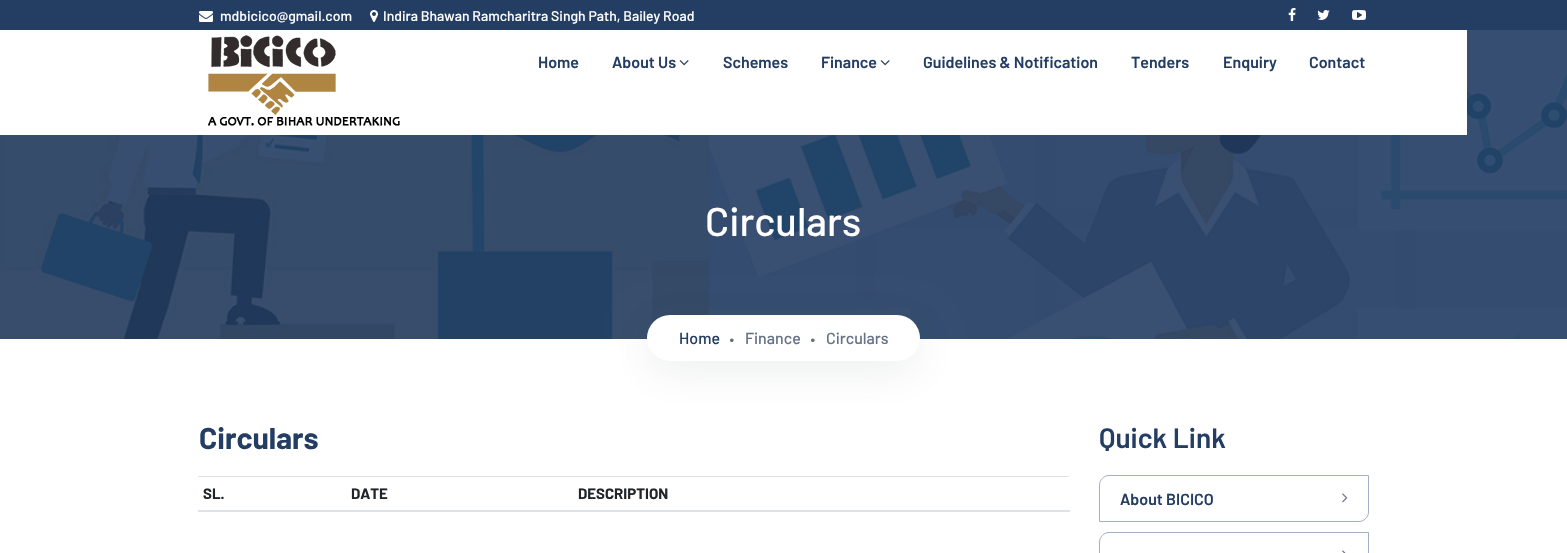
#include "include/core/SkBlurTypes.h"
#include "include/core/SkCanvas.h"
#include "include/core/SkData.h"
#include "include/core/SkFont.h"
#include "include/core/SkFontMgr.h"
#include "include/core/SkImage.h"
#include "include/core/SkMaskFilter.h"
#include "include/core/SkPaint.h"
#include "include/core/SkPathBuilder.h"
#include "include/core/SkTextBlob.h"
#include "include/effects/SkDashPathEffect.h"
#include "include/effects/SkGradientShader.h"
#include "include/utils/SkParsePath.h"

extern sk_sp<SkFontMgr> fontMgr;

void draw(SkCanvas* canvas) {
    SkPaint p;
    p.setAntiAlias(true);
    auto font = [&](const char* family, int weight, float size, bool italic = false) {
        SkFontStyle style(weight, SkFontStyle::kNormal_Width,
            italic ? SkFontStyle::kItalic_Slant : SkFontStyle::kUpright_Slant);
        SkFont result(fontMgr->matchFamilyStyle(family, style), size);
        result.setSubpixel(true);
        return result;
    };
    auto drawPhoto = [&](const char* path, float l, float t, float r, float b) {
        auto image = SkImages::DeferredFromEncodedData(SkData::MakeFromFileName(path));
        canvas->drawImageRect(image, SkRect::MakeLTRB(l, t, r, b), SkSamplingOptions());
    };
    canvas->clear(0xFFFFFFFF);
    p.setColor(0xFF233D63);
    canvas->drawRect(SkRect::MakeLTRB(0, 0, 1567, 30), p);
    drawPhoto("media/1.png", 199, 11, 213, 22);
    auto font1 = font("Barlow", 500, 14);
    p.setColor(0xFFFFFFFF);
    canvas->drawString("mdbicico@gmail.com", 220, 21, font1, p);
    drawPhoto("media/2.png", 370, 10, 378, 22);
    canvas->drawString("Indira Bhawan Ramcharitra Singh Path, Bailey Road", 383, 21, font1, p);
    drawPhoto("media/3.png", 1288, 8, 1296, 21);
    drawPhoto("media/4.png", 1317, 10, 1330, 20);
    drawPhoto("media/5.png", 1352, 10, 1366, 20);
    drawPhoto("media/8.png", 0, 30, 1567, 339);
    canvas->drawRect(SkRect::MakeLTRB(0, 30, 1467, 135), p);
    drawPhoto("media/6.png", 208, 35, 400, 126);
    auto font2 = font("Barlow", 600, 16);
    p.setColor(0xFF233D63);
    canvas->drawString("Home", 538, 68, font2, p);
    canvas->drawString("About Us", 612, 68, font2, p);
    drawPhoto("media/7.png", 679, 60, 689, 66);
    canvas->drawString("Schemes", 723, 68, font2, p);
    canvas->drawString("Finance", 821, 68, font2, p);
    drawPhoto("media/7.png", 880, 60, 890, 66);
    {
        const struct { const char* s; float x, y; } items[] = {
            {"Guidelines & Notification", 923, 68},
            {"Tenders", 1131, 68},
            {"Enquiry", 1223, 68},
            {"Contact", 1309, 68},
        };
        for (auto [s, x, y] : items) {
            canvas->drawString(s, x, y, font2, p);
        }
    }
    auto font3 = font("Barlow", 500, 40);
    p.setColor(0xFFFFFFFF);
    canvas->drawString("Circulars", 705, 236, font3, p);
    p.setColor(0x1A52555A);
    p.setMaskFilter(SkMaskFilter::MakeBlur(kNormal_SkBlurStyle, 20));
    canvas->drawRoundRect(SkRect::MakeLTRB(647, 325, 920, 371), 23, 23, p);
    p.setMaskFilter(nullptr);
    p.setColor(0xFFFFFFFF);
    canvas->drawRoundRect(SkRect::MakeLTRB(647, 315, 920, 361), 23, 23, p);
    auto font4 = font("Barlow", 500, 16);
    p.setColor(0xFF233D63);
    canvas->drawString("Home", 679, 344, font4, p);
    auto font5 = font("Barlow", 500, 28);
    p.setColor(0xFF677286);
    canvas->drawString(".", 728, 342, font5, p);
    canvas->drawString("Finance", 745, 344, font4, p);
    canvas->drawString(".", 809, 342, font5, p);
    canvas->drawString("Circulars", 826, 344, font4, p);
    auto font6 = font("Barlow", 700, 30);
    p.setColor(0xFF233D63);
    canvas->drawString("Circulars", 199, 449, font6, p);
    auto font7 = font("Barlow", 700, 15);
    p.setColor(0xFF212529);
    canvas->drawString("SL.", 203, 499, font7, p);
    canvas->drawString("DATE", 351, 499, font7, p);
    p.setColor(0xFFDEE2E6);
    canvas->drawRect(SkRect::MakeLTRB(198, 476, 1069, 477), p);
    canvas->drawRect(SkRect::MakeLTRB(198, 510, 1070, 512), p);
    p.setColor(0xFF212529);
    canvas->drawString("DESCRIPTION", 578, 499, font7, p);
    auto font8 = font("Barlow", 600, 28);
    p.setColor(0xFF233D63);
    canvas->drawString("Quick Link", 1099, 448, font8, p);
    p.setStyle(SkPaint::kStroke_Style);
    p.setStrokeWidth(1);
    p.setColor(0xFFA0AEC6);
    canvas->drawPath(SkPathBuilder().moveTo(1109, 475.5f).lineTo(1368.5f, 475.5f).lineTo(1368.5f, 512).cubicTo(1368.5f, 517, 1364, 521.5f, 1359, 521.5f).lineTo(1099.5f, 521.5f).lineTo(1099.5f, 485).cubicTo(1099.5f, 480, 1104, 475.5f, 1109, 475.5f).close().detach(), p);
    p.setStyle(SkPaint::kFill_Style);
    p.setColor(0xFF233D63);
    canvas->drawString("About BICICO", 1120, 505, font2, p);
    drawPhoto("media/9.png", 1342, 493, 1348, 503);
    p.setStyle(SkPaint::kStroke_Style);
    p.setColor(0xFFA0AEC6);
    canvas->drawPath(SkPathBuilder().moveTo(1109, 532.5f).lineTo(1368.5f, 532.5f).lineTo(1368.5f, 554).cubicTo(1368.5f, 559, 1364, 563.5f, 1359, 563.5f).lineTo(1099.5f, 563.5f).lineTo(1099.5f, 542).cubicTo(1099.5f, 537, 1104, 532.5f, 1109, 532.5f).close().detach(), p);
    drawPhoto("media/10.png", 1342, 550, 1346, 553);
}
